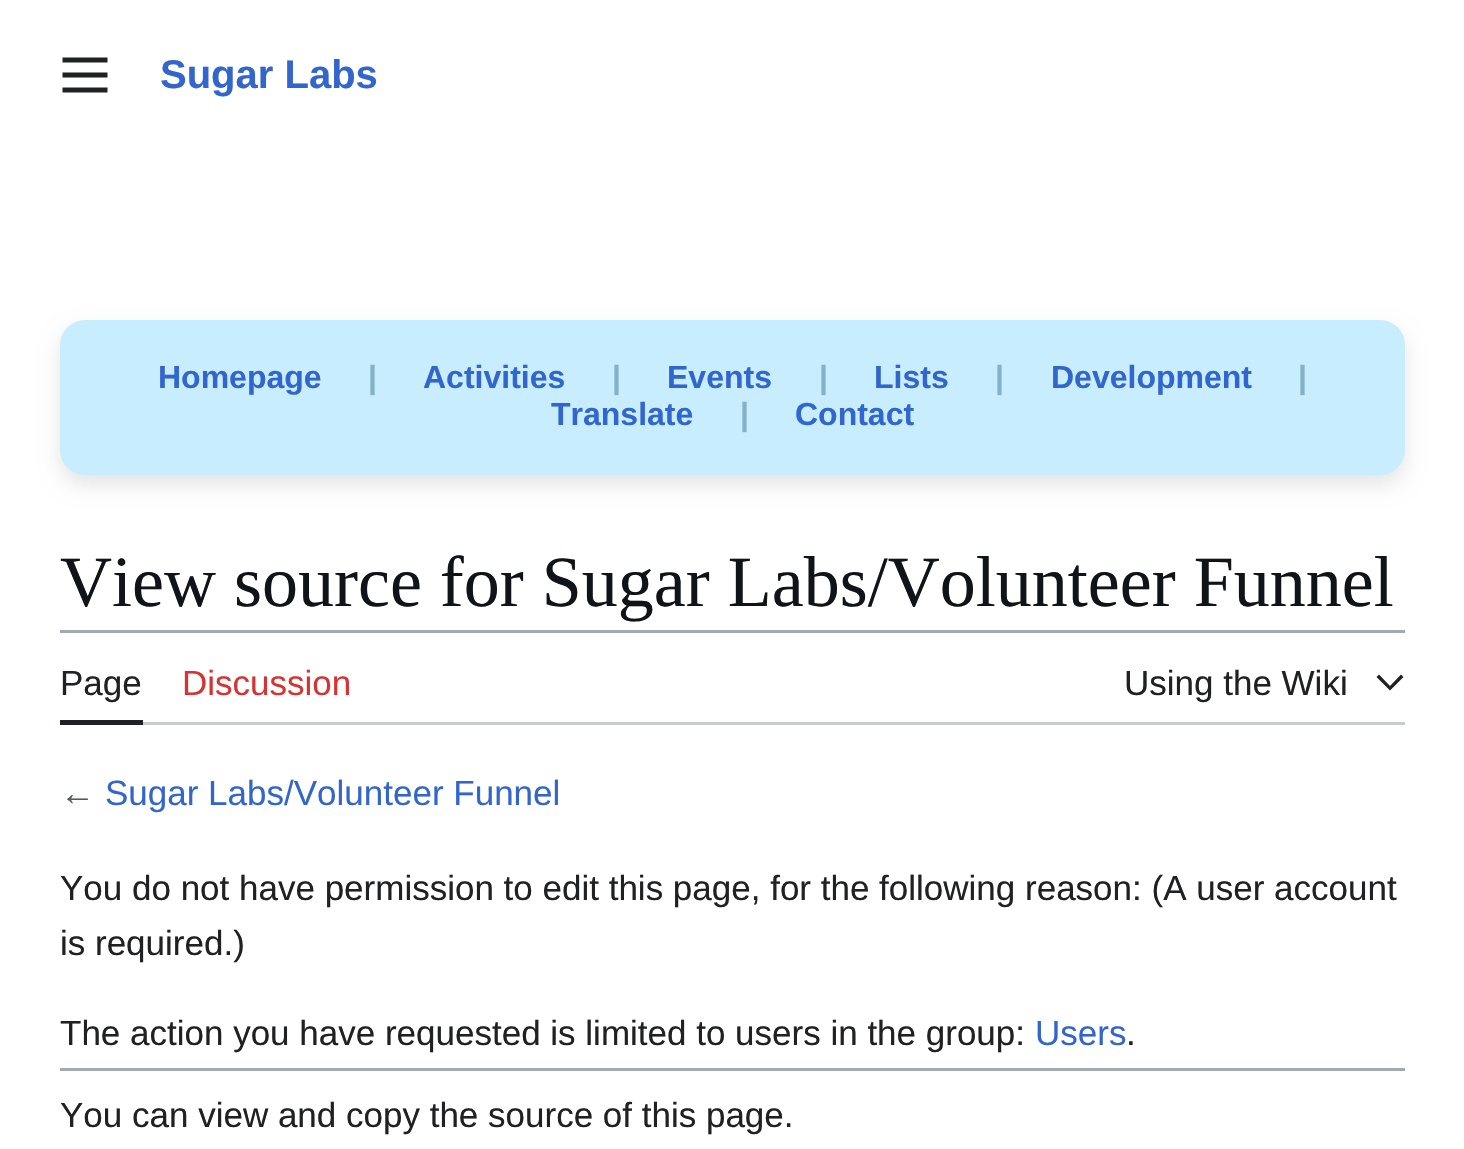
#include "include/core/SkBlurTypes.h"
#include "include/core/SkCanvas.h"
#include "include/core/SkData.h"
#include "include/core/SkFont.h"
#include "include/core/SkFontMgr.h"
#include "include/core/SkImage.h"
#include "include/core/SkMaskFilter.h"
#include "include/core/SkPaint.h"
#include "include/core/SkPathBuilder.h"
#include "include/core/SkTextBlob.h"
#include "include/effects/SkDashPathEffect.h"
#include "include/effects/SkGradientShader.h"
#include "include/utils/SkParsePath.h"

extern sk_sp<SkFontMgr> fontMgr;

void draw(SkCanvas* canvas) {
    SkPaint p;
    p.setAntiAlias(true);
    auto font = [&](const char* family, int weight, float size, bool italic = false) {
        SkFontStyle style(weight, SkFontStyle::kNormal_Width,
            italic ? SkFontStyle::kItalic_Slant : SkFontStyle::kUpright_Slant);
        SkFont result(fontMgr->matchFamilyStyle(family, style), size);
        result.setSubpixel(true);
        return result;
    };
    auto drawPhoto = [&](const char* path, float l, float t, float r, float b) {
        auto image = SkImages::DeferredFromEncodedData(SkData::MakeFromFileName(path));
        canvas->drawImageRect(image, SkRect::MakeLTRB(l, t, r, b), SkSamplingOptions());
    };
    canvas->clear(0xFFFFFFFF);
    drawPhoto("media/1.png", 62, 57, 108, 93);
    auto font1 = font("Liberation Sans", 700, 40);
    p.setColor(0xFF3366CC);
    canvas->drawString("Sugar Labs", 160, 88, font1, p);
    p.setColor(0x1A000000);
    p.setMaskFilter(SkMaskFilter::MakeBlur(kNormal_SkBlurStyle, 10));
    canvas->drawRoundRect(SkRect::MakeLTRB(60, 330, 1405, 485), 25, 25, p);
    p.setMaskFilter(nullptr);
    p.setColor(0xFFC8EDFF);
    canvas->drawRoundRect(SkRect::MakeLTRB(60, 320, 1405, 475), 25, 25, p);
    auto font2 = font("Liberation Sans", 700, 32);
    p.setColor(0xFF3366CC);
    canvas->drawString("Homepage", 158, 388, font2, p);
    p.setColor(0xFF83B1C8);
    canvas->drawString("|", 368, 388, font2, p);
    p.setColor(0xFF3366CC);
    canvas->drawString("Activities", 423, 388, font2, p);
    p.setColor(0xFF83B1C8);
    canvas->drawString("|", 612, 388, font2, p);
    p.setColor(0xFF3366CC);
    canvas->drawString("Events", 667, 388, font2, p);
    p.setColor(0xFF83B1C8);
    canvas->drawString("|", 819, 388, font2, p);
    p.setColor(0xFF3366CC);
    canvas->drawString("Lists", 874, 388, font2, p);
    p.setColor(0xFF83B1C8);
    canvas->drawString("|", 995, 388, font2, p);
    p.setColor(0xFF3366CC);
    canvas->drawString("Development", 1051, 388, font2, p);
    p.setColor(0xFF83B1C8);
    canvas->drawString("|", 1298, 388, font2, p);
    p.setColor(0xFF3366CC);
    canvas->drawString("Translate", 551, 425, font2, p);
    p.setColor(0xFF83B1C8);
    canvas->drawString("|", 740, 425, font2, p);
    p.setColor(0xFF3366CC);
    canvas->drawString("Contact", 795, 425, font2, p);
    auto font3 = font("Liberation Serif", 400, 72);
    p.setColor(0xFF101418);
    canvas->drawString("View source for Sugar Labs/Volunteer Funnel", 60, 606, font3, p);
    {
        const struct { float l, t, r, b; SkColor color; } items[] = {
            {60, 630, 1405, 633, 0xFFA2A9B1},
            {143, 722, 1405, 725, 0xFFC8CCD1},
            {60, 720, 143, 725, 0xFF202122},
        };
        for (auto [l, t, r, b, color] : items) {
            p.setColor(color);
            canvas->drawRect(SkRect::MakeLTRB(l, t, r, b), p);
        }
    }
    auto font4 = font("Liberation Sans", 400, 35);
    canvas->drawString("Page", 60, 695, font4, p);
    p.setColor(0xFFD73333);
    canvas->drawString("Discussion", 182, 695, font4, p);
    p.setColor(0xFF202122);
    canvas->drawString("Using the Wiki", 1124, 695, font4, p);
    canvas->drawPath(SkPathBuilder().moveTo(1401, 674.5f).lineTo(1390, 686).lineTo(1379, 674.5f).lineTo(1376.5f, 677).lineTo(1390, 690.5f).lineTo(1403.5f, 677).close().detach(), p);
    p.setColor(0xFF54595D);
    canvas->drawString("←", 60, 805, font4, p);
    p.setColor(0xFF3366CC);
    canvas->drawString("Sugar Labs/Volunteer Funnel", 105, 805, font4, p);
    p.setColor(0xFF202122);
    {
        const struct { const char* s; float x, y; } items[] = {
            {"You do not have permission to edit this page, for the following reason: (A user account", 60, 900},
            {"is required.)", 60, 955},
            {"The action you have requested is limited to users in the group:", 60, 1045},
        };
        for (auto [s, x, y] : items) {
            canvas->drawString(s, x, y, font4, p);
        }
    }
    p.setColor(0xFF3366CC);
    canvas->drawString("Users", 1035, 1045, font4, p);
    p.setColor(0xFF202122);
    canvas->drawString(".", 1126, 1045, font4, p);
    p.setColor(0xFFA2A9B1);
    canvas->drawRect(SkRect::MakeLTRB(60, 1068, 1405, 1071), p);
    p.setColor(0xFF202122);
    canvas->drawString("You can view and copy the source of this page.", 60, 1127, font4, p);
}
